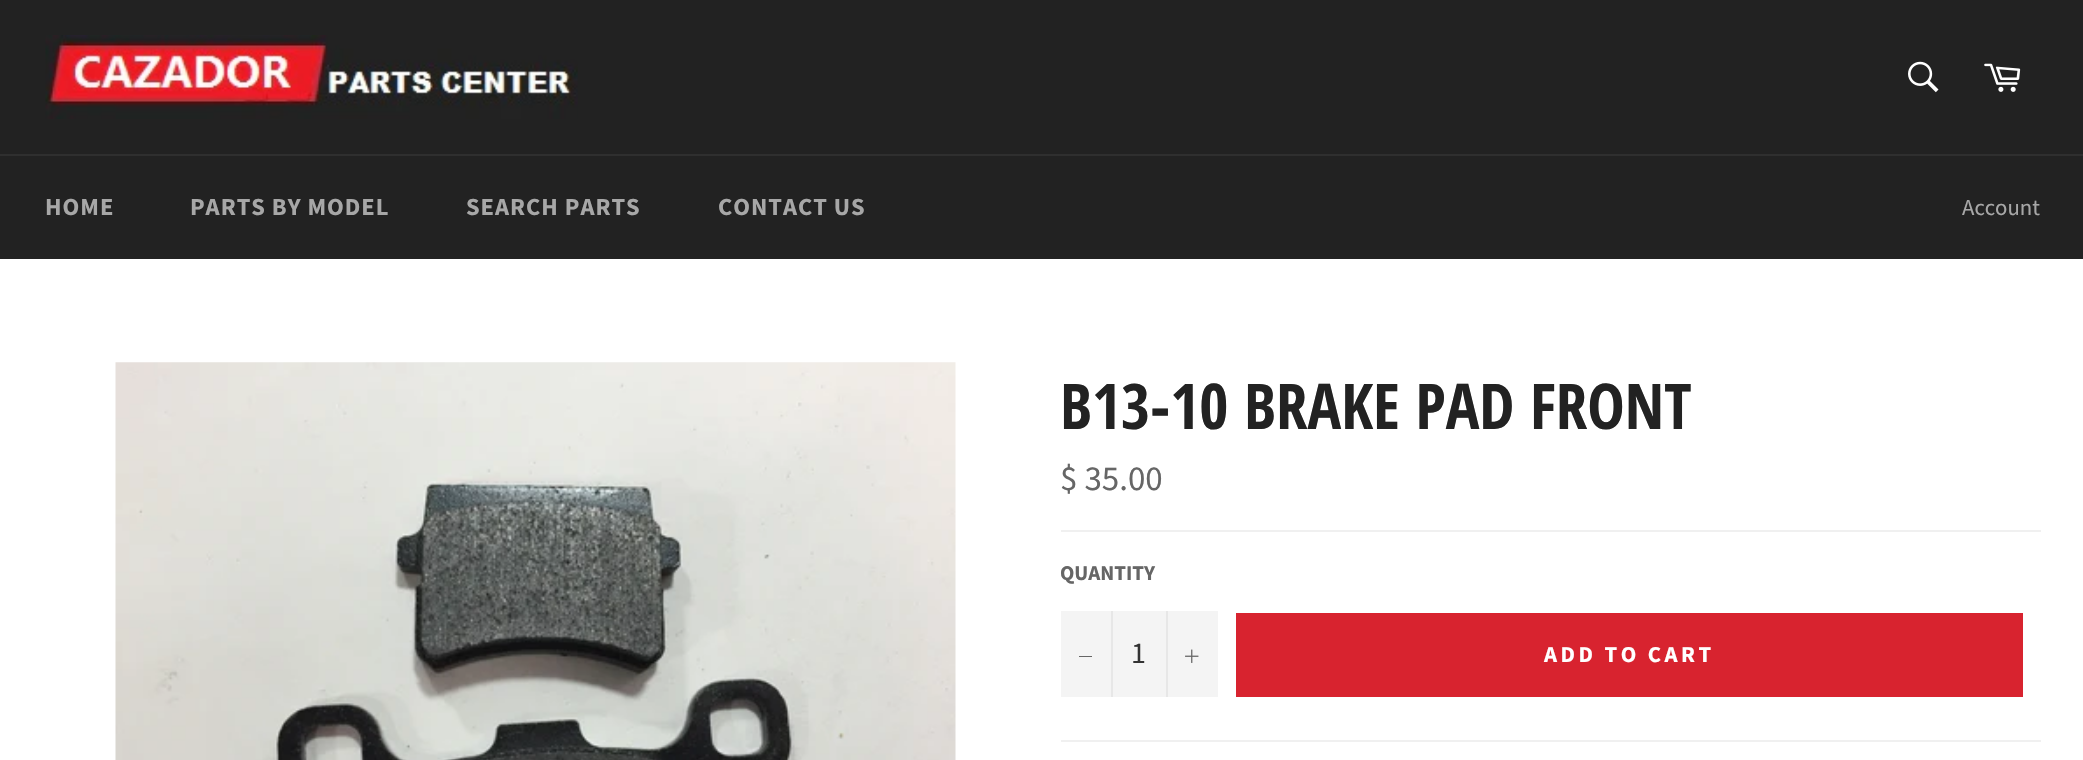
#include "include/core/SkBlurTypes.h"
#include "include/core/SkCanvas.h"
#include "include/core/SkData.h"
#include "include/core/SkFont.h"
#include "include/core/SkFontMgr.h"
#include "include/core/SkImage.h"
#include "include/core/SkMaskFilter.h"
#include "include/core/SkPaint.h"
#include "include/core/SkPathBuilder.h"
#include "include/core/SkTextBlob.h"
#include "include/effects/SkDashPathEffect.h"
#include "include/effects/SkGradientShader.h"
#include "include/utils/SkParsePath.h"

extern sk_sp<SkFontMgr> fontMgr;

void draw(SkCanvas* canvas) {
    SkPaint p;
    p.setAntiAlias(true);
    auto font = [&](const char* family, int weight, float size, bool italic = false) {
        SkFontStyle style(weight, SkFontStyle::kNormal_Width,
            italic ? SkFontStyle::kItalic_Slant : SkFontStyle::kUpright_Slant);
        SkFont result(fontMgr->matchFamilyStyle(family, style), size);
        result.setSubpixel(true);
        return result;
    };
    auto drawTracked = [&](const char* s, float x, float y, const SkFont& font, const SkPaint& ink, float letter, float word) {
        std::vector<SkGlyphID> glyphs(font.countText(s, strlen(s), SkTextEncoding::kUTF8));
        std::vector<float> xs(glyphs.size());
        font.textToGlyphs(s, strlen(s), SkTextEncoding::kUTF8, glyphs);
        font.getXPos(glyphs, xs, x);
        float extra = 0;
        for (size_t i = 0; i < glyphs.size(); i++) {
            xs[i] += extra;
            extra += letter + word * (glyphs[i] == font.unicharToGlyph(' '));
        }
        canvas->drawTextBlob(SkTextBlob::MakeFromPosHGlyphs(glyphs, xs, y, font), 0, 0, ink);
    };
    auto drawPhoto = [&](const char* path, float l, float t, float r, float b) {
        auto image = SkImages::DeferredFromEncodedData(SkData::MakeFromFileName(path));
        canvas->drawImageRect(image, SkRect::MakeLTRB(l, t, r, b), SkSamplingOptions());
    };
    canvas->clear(0xFF222222);
    drawPhoto("media/1.png", 45, 35, 578, 119);
    drawPhoto("media/2.png", 1908, 61, 1939, 93);
    drawPhoto("media/3.png", 1984, 63, 2021, 92);
    p.setColor(0xFF2F2F2F);
    canvas->drawRect(SkRect::MakeLTRB(0, 154, 2083, 156), p);
    auto font1 = font("Source Sans Pro", 700, 24.5f);
    p.setColor(0xFFA7A7A7);
    {
        const struct { const char* s; float x, y; } items[] = {
            {"HOME", 45, 215},
            {"PARTS BY MODEL", 190, 215},
            {"SEARCH PARTS", 466, 215},
            {"CONTACT US", 718, 215},
        };
        for (auto [s, x, y] : items) {
            drawTracked(s, x, y, font1, p, 1, 0);
        }
    }
    auto font2 = font("Source Sans Pro", 400, 22.75f);
    canvas->drawString("Account", 1962, 215, font2, p);
    p.setColor(0xFFFFFFFF);
    canvas->drawRect(SkRect::MakeLTRB(0, 259, 2083, 760), p);
    drawPhoto("media/4.png", 115, 362, 956, 760);
    auto font3 = font("Open Sans Condensed", 700, 63);
    p.setColor(0xFF222222);
    canvas->drawString("B13-10 BRAKE PAD FRONT", 1060, 429, font3, p);
    auto font4 = font("Source Sans Pro", 400, 35);
    p.setColor(0xFF666666);
    canvas->drawString("$ 35.00", 1060, 490, font4, p);
    p.setColor(0xFFF0F0F0);
    canvas->drawRect(SkRect::MakeLTRB(1061, 530, 2041, 532), p);
    auto font5 = font("Source Sans Pro", 700, 21);
    p.setColor(0xFF666666);
    canvas->drawString("QUANTITY", 1060, 580, font5, p);
    {
        const struct { float l, t, r, b; SkColor color; } items[] = {
            {1061, 611, 1218, 697, 0xFFF4F4F4},
            {1111, 611, 1113, 697, 0xFFE7E7E7},
            {1079, 656, 1092, 657, 0xFF666666},
        };
        for (auto [l, t, r, b, color] : items) {
            p.setColor(color);
            canvas->drawRect(SkRect::MakeLTRB(l, t, r, b), p);
        }
    }
    auto font6 = font("Source Sans Pro", 400, 30);
    p.setColor(0xFF333333);
    canvas->drawString("1", 1131, 663, font6, p);
    p.setColor(0xFFE7E7E7);
    canvas->drawRect(SkRect::MakeLTRB(1166, 611, 1168, 697), p);
    drawPhoto("media/5.png", 1185, 649, 1199, 663);
    p.setColor(0xFFD8232F);
    canvas->drawRect(SkRect::MakeLTRB(1236, 613, 2023, 697), p);
    auto font7 = font("Source Sans Pro", 700, 22.75f);
    p.setColor(0xFFFFFFFF);
    drawTracked("ADD TO CART", 1544, 662, font7, p, 3.5f, 0);
    p.setColor(0xFFF0F0F0);
    canvas->drawRect(SkRect::MakeLTRB(1061, 740, 2041, 742), p);
}
